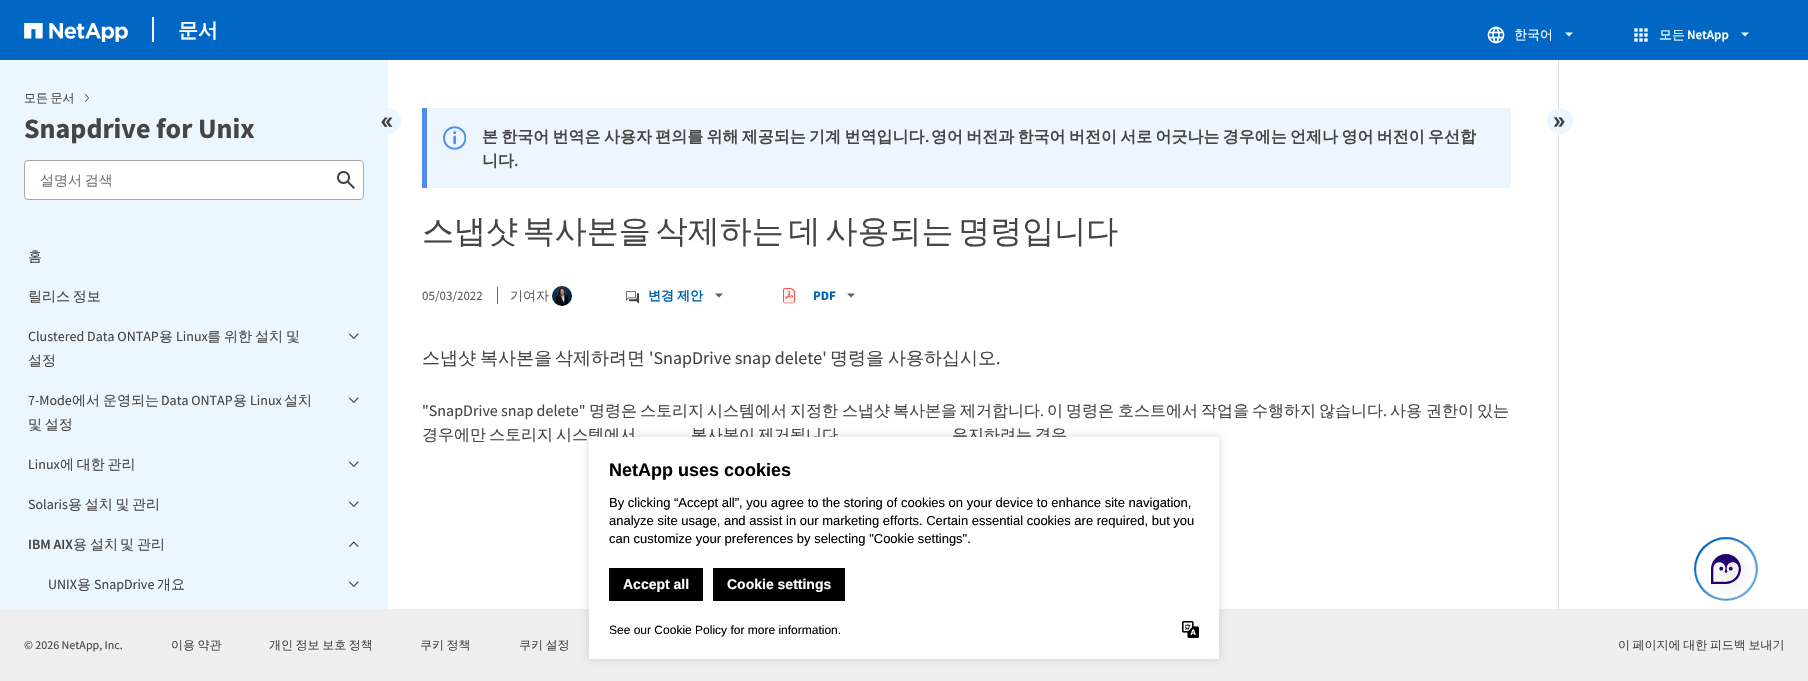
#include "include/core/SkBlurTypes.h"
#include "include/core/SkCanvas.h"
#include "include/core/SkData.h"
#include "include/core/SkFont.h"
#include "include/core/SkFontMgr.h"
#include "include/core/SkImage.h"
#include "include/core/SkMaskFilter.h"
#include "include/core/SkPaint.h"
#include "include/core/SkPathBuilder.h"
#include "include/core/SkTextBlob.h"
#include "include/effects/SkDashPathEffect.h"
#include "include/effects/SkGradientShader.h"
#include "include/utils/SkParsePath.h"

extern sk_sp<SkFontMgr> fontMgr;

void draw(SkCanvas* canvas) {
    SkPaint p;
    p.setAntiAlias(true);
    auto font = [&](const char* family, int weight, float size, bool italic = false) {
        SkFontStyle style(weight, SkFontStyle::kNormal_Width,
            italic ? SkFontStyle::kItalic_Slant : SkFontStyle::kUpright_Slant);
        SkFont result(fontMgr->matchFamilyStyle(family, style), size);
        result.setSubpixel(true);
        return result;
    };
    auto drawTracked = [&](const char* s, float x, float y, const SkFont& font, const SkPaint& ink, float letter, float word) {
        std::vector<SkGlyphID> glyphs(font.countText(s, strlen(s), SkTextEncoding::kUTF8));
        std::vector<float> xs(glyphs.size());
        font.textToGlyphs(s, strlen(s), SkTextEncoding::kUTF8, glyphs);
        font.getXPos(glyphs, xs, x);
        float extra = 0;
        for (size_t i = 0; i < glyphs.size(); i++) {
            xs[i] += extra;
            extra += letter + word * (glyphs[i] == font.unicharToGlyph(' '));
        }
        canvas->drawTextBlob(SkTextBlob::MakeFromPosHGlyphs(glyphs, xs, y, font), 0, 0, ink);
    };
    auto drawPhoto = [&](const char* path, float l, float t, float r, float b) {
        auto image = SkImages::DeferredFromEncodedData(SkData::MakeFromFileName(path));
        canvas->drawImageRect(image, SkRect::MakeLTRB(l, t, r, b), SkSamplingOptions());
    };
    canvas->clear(0xFFFFFFFF);
    p.setColor(0xFF0067C5);
    canvas->drawRect(SkRect::MakeLTRB(0, 0, 1808, 60), p);
    drawPhoto("media/1.png", 24, 23, 128, 42);
    p.setColor(0xFFFFFFFF);
    canvas->drawRect(SkRect::MakeLTRB(152, 17, 154, 42), p);
    auto font1 = font("WenQuanYi Zen Hei", 700, 20);
    canvas->drawString("문서", 178, 37, font1, p);
    drawPhoto("media/2.png", 1487, 26, 1505, 44);
    auto font2 = font("WenQuanYi Zen Hei", 500, 13);
    canvas->drawString("한국어", 1514, 39, font2, p);
    p.setColor(0xFFFDFDFD);
    canvas->drawPath(SkPathBuilder().moveTo(1569, 36.5f).lineTo(1565, 32.5f).lineTo(1573, 32.5f).close().detach(), p);
    drawPhoto("media/3.png", 1634, 28, 1648, 42);
    p.setColor(0xFFFFFFFF);
    canvas->drawString("모든", 1659, 39, font2, p);
    auto font3 = font("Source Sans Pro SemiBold", 600, 13);
    canvas->drawString("NetApp", 1687, 39, font3, p);
    p.setColor(0xFFFDFDFD);
    canvas->drawPath(SkPathBuilder().moveTo(1745, 36.5f).lineTo(1741, 32.5f).lineTo(1749, 32.5f).close().detach(), p);
    p.setColor(0xFFECF6FF);
    canvas->drawRect(SkRect::MakeLTRB(0, 60, 388, 609), p);
    auto font4 = font("WenQuanYi Zen Hei", 500, 12);
    p.setColor(0xFF454545);
    drawTracked("모든 문서", 24, 102, font4, p, 0, -1);
    drawPhoto("media/4.png", 85, 94, 89, 102);
    auto font5 = font("Source Sans Pro", 700, 28);
    canvas->drawString("Snapdrive for Unix", 24, 138, font5, p);
    p.setColor(0xFFECF6FF);
    canvas->drawCircle(388, 121, 13, p);
    drawPhoto("media/5.png", 381, 117, 393, 127);
    p.setColor(0xFFFFFFFF);
    canvas->drawRoundRect(SkRect::MakeLTRB(24.5f, 160.5f, 363.5f, 199.5f), 3.5f, 3.5f, p);
    p.setStyle(SkPaint::kStroke_Style);
    p.setStrokeWidth(1);
    p.setColor(0xFFA7A7A7);
    canvas->drawRoundRect(SkRect::MakeLTRB(24.5f, 160.5f, 363.5f, 199.5f), 3.5f, 3.5f, p);
    auto font6 = font("WenQuanYi Zen Hei", 500, 14);
    p.setStyle(SkPaint::kFill_Style);
    p.setColor(0xFF757575);
    drawTracked("설명서 검색", 40, 185, font6, p, 0, -1.5f);
    drawPhoto("media/6.png", 337, 171, 355, 189);
    p.setColor(0xFF454545);
    canvas->drawString("홈", 28, 261, font6, p);
    drawTracked("릴리스 정보", 28, 301, font6, p, 0, -1.5f);
    auto font7 = font("Source Sans Pro", 400, 14);
    canvas->drawString("Clustered Data ONTAP", 28, 341, font7, p);
    canvas->drawString("용", 159, 341, font6, p);
    canvas->drawString("Linux", 176, 341, font7, p);
    {
        const struct { const char* s; float x, y; } items[] = {
            {"를", 207, 341},
            {"위한", 224, 341},
            {"설치", 255, 341},
            {"및", 286, 341},
        };
        for (auto [s, x, y] : items) {
            canvas->drawString(s, x, y, font6, p);
        }
    }
    drawPhoto("media/7.png", 349, 333, 359, 339);
    canvas->drawString("설정", 28, 365, font6, p);
    canvas->drawString("7-Mode", 28, 405, font7, p);
    canvas->drawString("에서", 72, 405, font6, p);
    canvas->drawString("운영되는", 103, 405, font6, p);
    canvas->drawString("Data ONTAP", 161, 405, font7, p);
    canvas->drawString("용", 233, 405, font6, p);
    canvas->drawString("Linux", 250, 405, font7, p);
    canvas->drawString("설치", 284, 405, font6, p);
    drawPhoto("media/7.png", 349, 397, 359, 403);
    drawTracked("및 설정", 28, 429, font6, p, 0, -1.5f);
    canvas->drawString("Linux", 28, 469, font7, p);
    drawTracked("에 대한 관리", 60, 469, font6, p, 0, -1.5f);
    drawPhoto("media/7.png", 349, 461, 359, 467);
    canvas->drawString("Solaris", 28, 509, font7, p);
    drawTracked("용 설치 및 관리", 68, 509, font6, p, 0, -1.5f);
    drawPhoto("media/7.png", 349, 501, 359, 507);
    auto font8 = font("Source Sans Pro SemiBold", 600, 14);
    canvas->drawString("IBM AIX", 28, 549, font8, p);
    {
        const struct { const char* s; float x, y; } items[] = {
            {"용", 73, 549},
            {"설치", 90, 549},
            {"및", 120, 549},
            {"관리", 137, 549},
        };
        for (auto [s, x, y] : items) {
            canvas->drawString(s, x, y, font6, p);
        }
    }
    drawPhoto("media/8.png", 349, 541, 359, 547);
    canvas->drawString("UNIX", 48, 589, font7, p);
    canvas->drawString("용", 77, 589, font6, p);
    canvas->drawString("SnapDrive", 94, 589, font7, p);
    canvas->drawString("개요", 157, 589, font6, p);
    drawPhoto("media/7.png", 349, 581, 359, 587);
    p.setColor(0xFFEDF6FF);
    canvas->drawRect(SkRect::MakeLTRB(427, 108, 1511, 188), p);
    p.setColor(0xFF518BEC);
    canvas->drawRect(SkRect::MakeLTRB(422, 108, 427, 188), p);
    drawPhoto("media/9.png", 443, 126, 466, 150);
    auto font9 = font("WenQuanYi Zen Hei", 700, 16);
    p.setColor(0xFF454545);
    drawTracked("본 한국어 번역은 사용자 편의를 위해 제공되는 기계 번역입니다", 482, 142, font9, p, 0, -1.5f);
    auto font10 = font("Source Sans Pro SemiBold", 600, 16);
    canvas->drawString(".", 925, 142, font10, p);
    drawTracked("영어 버전과 한국어 버전이 서로 어긋나는 경우에는 언제나 영어 버전이 우선합", 931, 142, font9, p, 0, -1.5f);
    canvas->drawString("니다", 482, 166, font9, p);
    canvas->drawString(".", 514, 166, font10, p);
    auto font11 = font("WenQuanYi Zen Hei", 500, 32);
    drawTracked("스냅샷 복사본을 삭제하는 데 사용되는 명령입니다", 422, 242, font11, p, 0, -4.75f);
    auto font12 = font("Source Sans Pro", 400, 13);
    p.setColor(0xFF5E5E5E);
    canvas->drawString("05/03/2022", 422, 300, font12, p);
    p.setColor(0xFF686868);
    canvas->drawRect(SkRect::MakeLTRB(497, 287, 498, 304), p);
    p.setColor(0xFF5E5E5E);
    canvas->drawString("기여자", 510, 300, font2, p);
    drawPhoto("media/10.png", 552, 286, 572, 306);
    drawPhoto("media/11.png", 626, 291, 639, 304);
    auto font13 = font("WenQuanYi Zen Hei", 700, 13);
    p.setColor(0xFF0065B3);
    drawTracked("변경 제안", 648, 300, font13, p, 0, -1);
    p.setColor(0xFF5E5E5E);
    canvas->drawPath(SkPathBuilder().moveTo(719, 297.5f).lineTo(715, 293.5f).lineTo(723, 293.5f).close().detach(), p);
    drawPhoto("media/12.png", 783, 288, 795, 304);
    auto font14 = font("Source Sans Pro", 700, 13);
    p.setColor(0xFF0065B3);
    canvas->drawString("PDF", 813, 300, font14, p);
    p.setColor(0xFF5E5E5E);
    canvas->drawPath(SkPathBuilder().moveTo(851, 297.5f).lineTo(847, 293.5f).lineTo(855, 293.5f).close().detach(), p);
    auto font15 = font("WenQuanYi Zen Hei", 500, 18);
    p.setColor(0xFF454545);
    {
        const struct { const char* s; float x, y; } items[] = {
            {"스냅샷", 422, 364},
            {"복사본을", 480, 364},
            {"삭제하려면", 555, 364},
        };
        for (auto [s, x, y] : items) {
            canvas->drawString(s, x, y, font15, p);
        }
    }
    auto font16 = font("Source Sans Pro", 400, 18);
    canvas->drawString("'SnapDrive snap delete'", 649, 364, font16, p);
    canvas->drawString("명령을", 830, 364, font15, p);
    canvas->drawString("사용하십시오", 888, 364, font15, p);
    canvas->drawString(".", 996, 364, font16, p);
    auto font17 = font("Source Sans Pro", 400, 16);
    canvas->drawString("\"SnapDrive snap delete\"", 422, 416, font17, p);
    auto font18 = font("WenQuanYi Zen Hei", 500, 16);
    {
        const struct { const char* s; float x, y; } items[] = {
            {"명령은", 589, 416},
            {"스토리지", 640, 416},
            {"시스템에서", 707, 416},
            {"지정한", 790, 416},
            {"스냅샷", 842, 416},
            {"복사본을", 893, 416},
            {"제거합니다", 960, 416},
        };
        for (auto [s, x, y] : items) {
            canvas->drawString(s, x, y, font18, p);
        }
    }
    canvas->drawString(".", 1040, 416, font17, p);
    {
        const struct { const char* s; float x, y; } items[] = {
            {"이", 1047, 416},
            {"명령은", 1066, 416},
            {"호스트에서", 1118, 416},
            {"작업을", 1201, 416},
            {"수행하지", 1252, 416},
            {"않습니다", 1319, 416},
        };
        for (auto [s, x, y] : items) {
            canvas->drawString(s, x, y, font18, p);
        }
    }
    canvas->drawString(".", 1383, 416, font17, p);
    {
        const struct { const char* s; float x, y; } items[] = {
            {"사용", 1390, 416},
            {"권한이", 1426, 416},
            {"있는", 1477, 416},
            {"경우에만", 422, 440},
            {"스토리지", 489, 440},
            {"시스템에서", 556, 440},
            {"복사본이", 691, 440},
            {"제거됩니다", 758, 440},
            {"유지하려는", 952, 440},
            {"경우", 1035, 440},
        };
        for (auto [s, x, y] : items) {
            canvas->drawString(s, x, y, font18, p);
        }
    }
    p.setColor(0xFFE0E0E0);
    canvas->drawRect(SkRect::MakeLTRB(1558, 60, 1559, 609), p);
    p.setColor(0xFFECF6FF);
    canvas->drawCircle(1560, 121, 13, p);
    drawPhoto("media/13.png", 1553, 117, 1565, 127);
    {
        const SkColor colors[] = {0xFF0067C5, 0xFF7AC3FA};
        const float stops[] = {0.18f, 0.89f};
        const SkPoint ends[] = {{1694, 537}, {1758, 601}};
        p.setShader(SkGradientShader::MakeLinear(ends, colors, stops, 2, SkTileMode::kClamp));
        p.setAlpha(255);
    }
    canvas->drawCircle(1726, 569, 32, p);
    drawPhoto("media/14.png", 1696, 539, 1757, 600);
    p.setShader(nullptr);
    p.setColor(0xFFEFEFEF);
    canvas->drawRect(SkRect::MakeLTRB(0, 609, 1808, 681), p);
    auto font19 = font("Source Sans Pro", 400, 12);
    p.setColor(0xFF454545);
    canvas->drawString("© 2026 NetApp, Inc.", 24, 649, font19, p);
    {
        const struct { const char* s; float x, y; } items[] = {
            {"이용 약관", 171, 649},
            {"개인 정보 보호 정책", 269, 649},
            {"쿠키 정책", 420, 649},
            {"쿠키 설정", 519, 649},
            {"이 페이지에 대한 피드백 보내기", 1618, 649},
        };
        for (auto [s, x, y] : items) {
            drawTracked(s, x, y, font4, p, 0, -1);
        }
    }
    p.setColor(0x26000000);
    p.setMaskFilter(SkMaskFilter::MakeBlur(kNormal_SkBlurStyle, 4));
    canvas->drawRect(SkRect::MakeLTRB(589, 437, 1219, 659), p);
    p.setMaskFilter(nullptr);
    p.setColor(0xFFFFFFFF);
    canvas->drawRect(SkRect::MakeLTRB(589, 437, 1219, 659), p);
    auto font20 = font("Liberation Sans", 700, 18);
    p.setColor(0xFF000000);
    canvas->drawString("NetApp uses cookies", 609, 476, font20, p);
    auto font21 = font("Liberation Sans", 400, 13);
    {
        const struct { const char* s; float x, y; } items[] = {
            {"By clicking “Accept all”, you agree to the storing of cookies on your device to enhance site navigation,", 609, 507},
            {"analyze site usage, and assist in our marketing efforts. Certain essential cookies are required, but you", 609, 525},
            {"can customize your preferences by selecting \"Cookie settings\".", 609, 543},
        };
        for (auto [s, x, y] : items) {
            canvas->drawString(s, x, y, font21, p);
        }
    }
    canvas->drawRect(SkRect::MakeLTRB(609, 568, 703, 601), p);
    auto font22 = font("Liberation Sans", 700, 14);
    p.setColor(0xFFFFFFFF);
    canvas->drawString("Accept all", 623, 589, font22, p);
    p.setColor(0xFF000000);
    canvas->drawRect(SkRect::MakeLTRB(713, 568, 845, 601), p);
    p.setColor(0xFFFFFFFF);
    canvas->drawString("Cookie settings", 727, 589, font22, p);
    auto font23 = font("Liberation Sans", 400, 12);
    p.setColor(0xFF000000);
    canvas->drawString("See our Cookie Policy for more information.", 609, 634, font23, p);
    drawPhoto("media/15.png", 1182, 621, 1199, 638);
}
